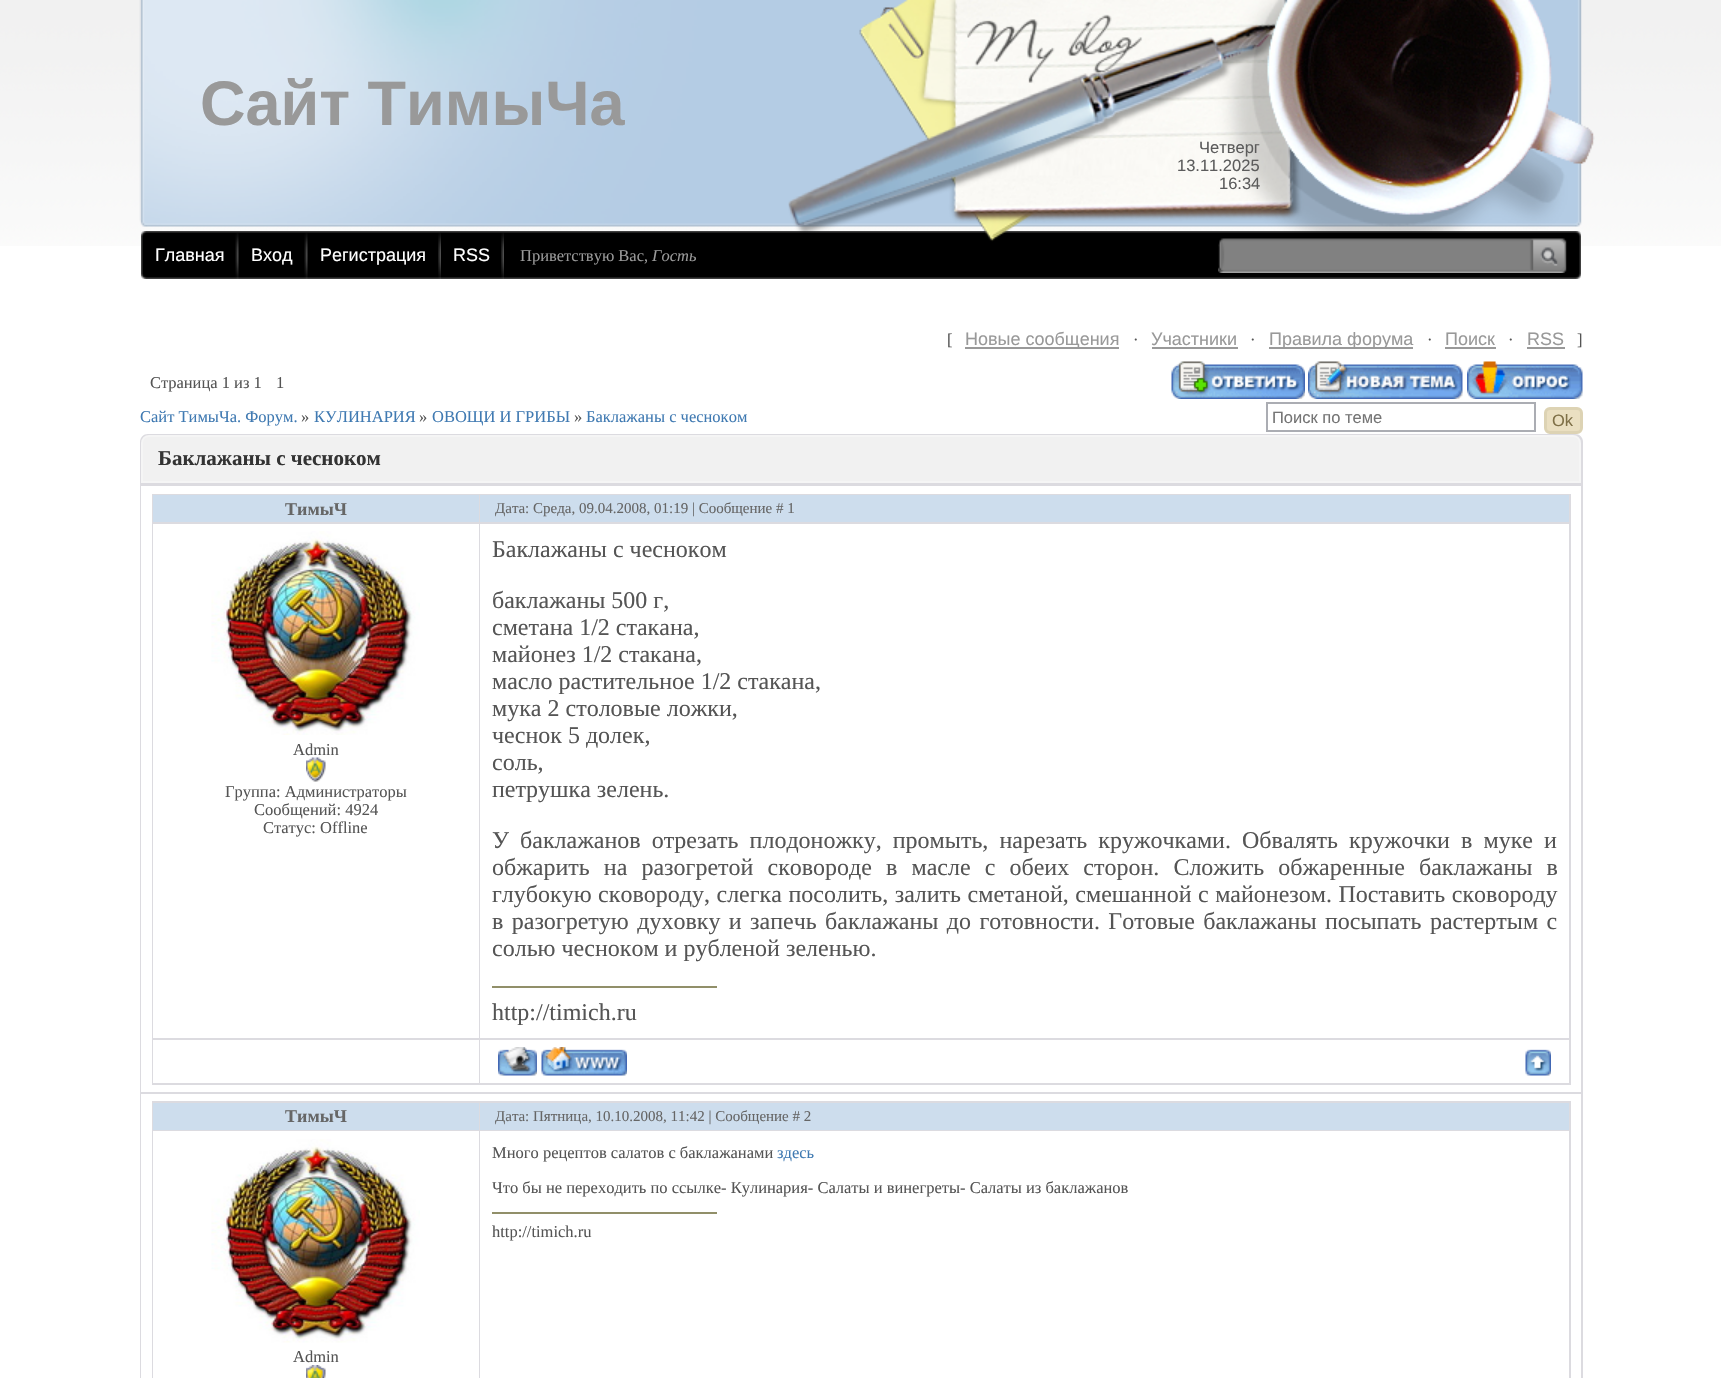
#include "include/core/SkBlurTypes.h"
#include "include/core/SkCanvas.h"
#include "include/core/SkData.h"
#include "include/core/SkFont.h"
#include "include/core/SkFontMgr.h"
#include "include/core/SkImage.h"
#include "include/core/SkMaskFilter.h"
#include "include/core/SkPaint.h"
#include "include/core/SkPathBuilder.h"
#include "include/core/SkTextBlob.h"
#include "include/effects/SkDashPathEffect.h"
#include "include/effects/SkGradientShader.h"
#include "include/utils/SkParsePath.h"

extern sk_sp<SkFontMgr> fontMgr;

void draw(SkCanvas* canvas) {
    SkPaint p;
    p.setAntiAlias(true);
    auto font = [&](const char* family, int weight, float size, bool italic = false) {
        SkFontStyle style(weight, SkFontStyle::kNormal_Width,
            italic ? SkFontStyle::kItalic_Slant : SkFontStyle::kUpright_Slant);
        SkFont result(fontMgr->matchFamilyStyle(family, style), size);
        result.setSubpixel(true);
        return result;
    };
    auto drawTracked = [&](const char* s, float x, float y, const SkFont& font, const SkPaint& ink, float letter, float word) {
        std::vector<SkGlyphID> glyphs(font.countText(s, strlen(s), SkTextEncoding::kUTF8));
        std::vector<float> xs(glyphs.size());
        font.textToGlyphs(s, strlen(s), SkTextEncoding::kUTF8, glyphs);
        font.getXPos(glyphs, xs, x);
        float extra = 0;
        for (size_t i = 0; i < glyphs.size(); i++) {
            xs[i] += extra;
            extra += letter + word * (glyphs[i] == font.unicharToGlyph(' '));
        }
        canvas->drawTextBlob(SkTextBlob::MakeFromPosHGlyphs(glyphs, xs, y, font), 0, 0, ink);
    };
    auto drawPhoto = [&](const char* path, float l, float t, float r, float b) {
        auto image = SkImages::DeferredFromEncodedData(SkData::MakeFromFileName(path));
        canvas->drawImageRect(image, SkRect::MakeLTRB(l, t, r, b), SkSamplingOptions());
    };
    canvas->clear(0xFFFFFFFF);
    drawPhoto("media/1.png", 0, 0, 1721, 246);
    drawPhoto("media/2.png", 139, 0, 1582, 227);
    auto font1 = font("Liberation Sans", 700, 63);
    p.setColor(0xFF999999);
    canvas->drawString("Сайт ТимыЧа", 200, 125, font1, p);
    drawPhoto("media/4.png", 141, 231, 1581, 279);
    drawPhoto("media/3.png", 788, 0, 1595, 242);
    auto font2 = font("Liberation Sans", 400, 16.5f);
    p.setColor(0xFF5C5C5C);
    {
        const struct { const char* s; float x, y; } items[] = {
            {"Четверг", 1199, 153},
            {"13.11.2025", 1177, 171},
            {"16:34", 1219, 189},
        };
        for (auto [s, x, y] : items) {
            canvas->drawString(s, x, y, font2, p);
        }
    }
    drawPhoto("media/5.png", 235, 233, 239, 279);
    auto font3 = font("Liberation Sans", 400, 18);
    p.setColor(0xFFFFFFFF);
    canvas->drawString("Главная", 155, 261, font3, p);
    drawPhoto("media/5.png", 304, 233, 308, 279);
    canvas->drawString("Вход", 251, 261, font3, p);
    drawPhoto("media/6.png", 438, 233, 441, 279);
    canvas->drawString("Регистрация", 320, 261, font3, p);
    drawPhoto("media/6.png", 501, 233, 504, 279);
    canvas->drawString("RSS", 453, 261, font3, p);
    auto font4 = font("Liberation Serif", 400, 16.5f);
    p.setColor(0xFF999999);
    canvas->drawString("Приветствую Вас,", 520, 261, font4, p);
    auto font5 = font("Liberation Serif", 400, 16.5f, true);
    canvas->drawString("Гость", 652, 261, font5, p);
    drawPhoto("media/7.png", 1218, 238, 1567, 273);
    p.setColor(0xFF555555);
    canvas->drawString("[", 947, 345, font4, p);
    p.setColor(0xFF999999);
    canvas->drawRect(SkRect::MakeLTRB(965, 347, 1119, 349), p);
    canvas->drawString("Новые сообщения", 965, 345, font3, p);
    p.setColor(0xFF555555);
    canvas->drawString("·", 1133, 345, font4, p);
    p.setColor(0xFF999999);
    canvas->drawString("Участники", 1151, 345, font3, p);
    canvas->drawRect(SkRect::MakeLTRB(1152, 347, 1238, 349), p);
    p.setColor(0xFF555555);
    canvas->drawString("·", 1250, 345, font4, p);
    p.setColor(0xFF999999);
    canvas->drawRect(SkRect::MakeLTRB(1269, 347, 1413, 349), p);
    canvas->drawString("Правила форума", 1269, 345, font3, p);
    p.setColor(0xFF555555);
    canvas->drawString("·", 1427, 345, font4, p);
    p.setColor(0xFF999999);
    canvas->drawString("Поиск", 1445, 345, font3, p);
    canvas->drawRect(SkRect::MakeLTRB(1445, 347, 1496, 349), p);
    p.setColor(0xFF555555);
    canvas->drawString("·", 1508, 345, font4, p);
    p.setColor(0xFF999999);
    canvas->drawString("RSS", 1527, 345, font3, p);
    canvas->drawRect(SkRect::MakeLTRB(1527, 347, 1565, 349), p);
    p.setColor(0xFF555555);
    {
        const struct { const char* s; float x, y; } items[] = {
            {"]", 1577, 345},
            {"Страница 1 из 1", 150, 388},
            {"1", 276, 388},
        };
        for (auto [s, x, y] : items) {
            canvas->drawString(s, x, y, font4, p);
        }
    }
    drawPhoto("media/8.png", 1171, 361, 1305, 399);
    drawPhoto("media/9.png", 1308, 361, 1463, 399);
    drawPhoto("media/10.png", 1467, 361, 1583, 399);
    p.setColor(0xFF407AB2);
    canvas->drawString("Сайт ТимыЧа. Форум.", 140, 422, font4, p);
    p.setColor(0xFF555555);
    canvas->drawString("»", 301, 422, font4, p);
    p.setColor(0xFF407AB2);
    canvas->drawString("КУЛИНАРИЯ", 314, 422, font4, p);
    p.setColor(0xFF555555);
    canvas->drawString("»", 419, 422, font4, p);
    p.setColor(0xFF407AB2);
    canvas->drawString("ОВОЩИ И ГРИБЫ", 432, 422, font4, p);
    p.setColor(0xFF555555);
    canvas->drawString("»", 574, 422, font4, p);
    p.setColor(0xFF407AB2);
    canvas->drawString("Баклажаны с чесноком", 586, 422, font4, p);
    p.setStyle(SkPaint::kStroke_Style);
    p.setStrokeWidth(2);
    p.setColor(0xFFABADB3);
    canvas->drawRect(SkRect::MakeLTRB(1267, 403, 1535, 431), p);
    p.setStyle(SkPaint::kFill_Style);
    p.setColor(0xFF757575);
    canvas->drawString("Поиск по теме", 1272, 423, font2, p);
    p.setColor(0xFFEADFC1);
    canvas->drawRoundRect(SkRect::MakeLTRB(1545.5f, 408.5f, 1581.5f, 432.5f), 4.5f, 4.5f, p);
    p.setStyle(SkPaint::kStroke_Style);
    p.setStrokeWidth(3);
    p.setColor(0xFFDDD3B4);
    canvas->drawRoundRect(SkRect::MakeLTRB(1545.5f, 408.5f, 1581.5f, 432.5f), 4.5f, 4.5f, p);
    p.setStyle(SkPaint::kFill_Style);
    p.setColor(0xFF7F7047);
    canvas->drawString("Ok", 1552, 426, font2, p);
    p.setColor(0xFFDCDBE0);
    canvas->drawPath(SkPathBuilder().moveTo(148, 434).lineTo(1575, 434).cubicTo(1579.5f, 434, 1583, 437.5f, 1583, 442).lineTo(1583, 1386).lineTo(140, 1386).lineTo(140, 442).cubicTo(140, 437.5f, 143.5f, 434, 148, 434).close().detach(), p);
    p.setColor(0xFFF1F1F1);
    canvas->drawPath(SkPathBuilder().moveTo(149, 436).lineTo(1573, 436).cubicTo(1577, 436, 1580, 439, 1580, 443).lineTo(1580, 482).lineTo(142, 482).lineTo(142, 443).cubicTo(142, 439, 145, 436, 149, 436).close().detach(), p);
    p.setStyle(SkPaint::kStroke_Style);
    p.setStrokeWidth(2);
    p.setColor(0xFFF5F5F5);
    canvas->drawPath(SkPathBuilder().moveTo(149, 436).lineTo(1573, 436).cubicTo(1577, 436, 1580, 439, 1580, 443).lineTo(1580, 482).lineTo(142, 482).lineTo(142, 443).cubicTo(142, 439, 145, 436, 149, 436).close().detach(), p);
    auto font6 = font("Liberation Serif", 700, 21);
    p.setStyle(SkPaint::kFill_Style);
    p.setColor(0xFF333333);
    canvas->drawString("Баклажаны с чесноком", 158, 465, font6, p);
    {
        const struct { float l, t, r, b; SkColor color; } items[] = {
            {141, 486, 1581, 1092, 0xFFFFFFFF},
            {152, 494, 1571, 1085, 0xFFDCDBE0},
            {153, 495, 479, 522, 0xFFCDDDED},
        };
        for (auto [l, t, r, b, color] : items) {
            p.setColor(color);
            canvas->drawRect(SkRect::MakeLTRB(l, t, r, b), p);
        }
    }
    auto font7 = font("Liberation Serif", 700, 18);
    p.setColor(0xFF666666);
    canvas->drawString("ТимыЧ", 285, 515, font7, p);
    p.setColor(0xFFCDDDED);
    canvas->drawRect(SkRect::MakeLTRB(480, 495, 1569, 522), p);
    auto font8 = font("Liberation Serif", 400, 15);
    p.setColor(0xFF666666);
    canvas->drawString("Дата: Среда, 09.04.2008, 01:19 | Сообщение # 1", 495, 513, font8, p);
    p.setColor(0xFFFFFFFF);
    canvas->drawRect(SkRect::MakeLTRB(153, 524, 479, 1038), p);
    drawPhoto("media/11.png", 211, 531, 420, 735);
    p.setColor(0xFF555555);
    canvas->drawString("Admin", 293, 755, font4, p);
    drawPhoto("media/12.png", 306, 757, 326, 782);
    {
        const struct { const char* s; float x, y; } items[] = {
            {"Группа: Администраторы", 225, 797},
            {"Сообщений: 4924", 254, 815},
            {"Статус: Offline", 263, 833},
        };
        for (auto [s, x, y] : items) {
            canvas->drawString(s, x, y, font4, p);
        }
    }
    p.setColor(0xFFFFFFFF);
    canvas->drawRect(SkRect::MakeLTRB(480, 524, 1569, 1038), p);
    auto font9 = font("Liberation Serif", 400, 24);
    p.setColor(0xFF555555);
    {
        const struct { const char* s; float x, y; } items[] = {
            {"Баклажаны с чесноком", 492, 557},
            {"баклажаны 500 г,", 492, 608},
            {"сметана 1/2 стакана,", 492, 635},
            {"майонез 1/2 стакана,", 492, 662},
            {"масло растительное 1/2 стакана,", 492, 689},
            {"мука 2 столовые ложки,", 492, 716},
            {"чеснок 5 долек,", 492, 743},
            {"соль,", 492, 770},
            {"петрушка зелень.", 492, 797},
        };
        for (auto [s, x, y] : items) {
            canvas->drawString(s, x, y, font9, p);
        }
    }
    drawTracked("У баклажанов отрезать плодоножку, промыть, нарезать кружочками. Обвалять кружочки в муке и", 492, 848, font9, p, 0, 5.1f);
    drawTracked("обжарить на разогретой сковороде в масле с обеих сторон. Сложить обжаренные баклажаны в", 492, 875, font9, p, 0, 8.1f);
    drawTracked("глубокую сковороду, слегка посолить, залить сметаной, смешанной с майонезом. Поставить сковороду", 492, 902, font9, p, 0, 0.5f);
    drawTracked("в разогретую духовку и запечь баклажаны до готовности. Готовые баклажаны посыпать растертым с", 492, 929, font9, p, 0, 2.4f);
    canvas->drawString("солью чесноком и рубленой зеленью.", 492, 956, font9, p);
    p.setColor(0xFF918F69);
    canvas->drawRect(SkRect::MakeLTRB(492, 986, 717, 988), p);
    p.setColor(0xFF555555);
    canvas->drawString("http://timich.ru", 492, 1020, font9, p);
    p.setColor(0xFFFFFFFF);
    canvas->drawRect(SkRect::MakeLTRB(153, 1040, 479, 1083), p);
    canvas->drawRect(SkRect::MakeLTRB(480, 1040, 1569, 1083), p);
    drawPhoto("media/13.png", 498, 1047, 537, 1076);
    drawPhoto("media/14.png", 541, 1047, 627, 1076);
    drawPhoto("media/15.png", 1525, 1049, 1551, 1076);
    {
        const struct { float l, t, r, b; SkColor color; } items[] = {
            {141, 1094, 1581, 1378, 0xFFFFFFFF},
            {152, 1101, 1571, 1378, 0xFFDCDBE0},
            {153, 1103, 479, 1130, 0xFFCDDDED},
        };
        for (auto [l, t, r, b, color] : items) {
            p.setColor(color);
            canvas->drawRect(SkRect::MakeLTRB(l, t, r, b), p);
        }
    }
    p.setColor(0xFF666666);
    canvas->drawString("ТимыЧ", 285, 1122, font7, p);
    p.setColor(0xFFCDDDED);
    canvas->drawRect(SkRect::MakeLTRB(480, 1103, 1569, 1130), p);
    p.setColor(0xFF666666);
    canvas->drawString("Дата: Пятница, 10.10.2008, 11:42 | Сообщение # 2", 495, 1121, font8, p);
    p.setColor(0xFFFFFFFF);
    canvas->drawRect(SkRect::MakeLTRB(480, 1131, 1569, 1378), p);
    p.setColor(0xFF555555);
    canvas->drawString("Много рецептов салатов с баклажанами", 492, 1158, font4, p);
    p.setColor(0xFF407AB2);
    canvas->drawString("здесь", 777, 1158, font4, p);
    p.setColor(0xFF555555);
    canvas->drawString("Что бы не переходить по ссылке- Кулинария- Салаты и винегреты- Салаты из баклажанов", 492, 1193, font4, p);
    p.setColor(0xFF918F69);
    canvas->drawRect(SkRect::MakeLTRB(492, 1212, 717, 1214), p);
    p.setColor(0xFF555555);
    canvas->drawString("http://timich.ru", 492, 1237, font4, p);
    p.setColor(0xFFFFFFFF);
    canvas->drawRect(SkRect::MakeLTRB(153, 1131, 479, 1378), p);
    drawPhoto("media/16.png", 211, 1139, 420, 1343);
    p.setColor(0xFF555555);
    canvas->drawString("Admin", 293, 1362, font4, p);
    drawPhoto("media/17.png", 306, 1365, 326, 1378);
}
